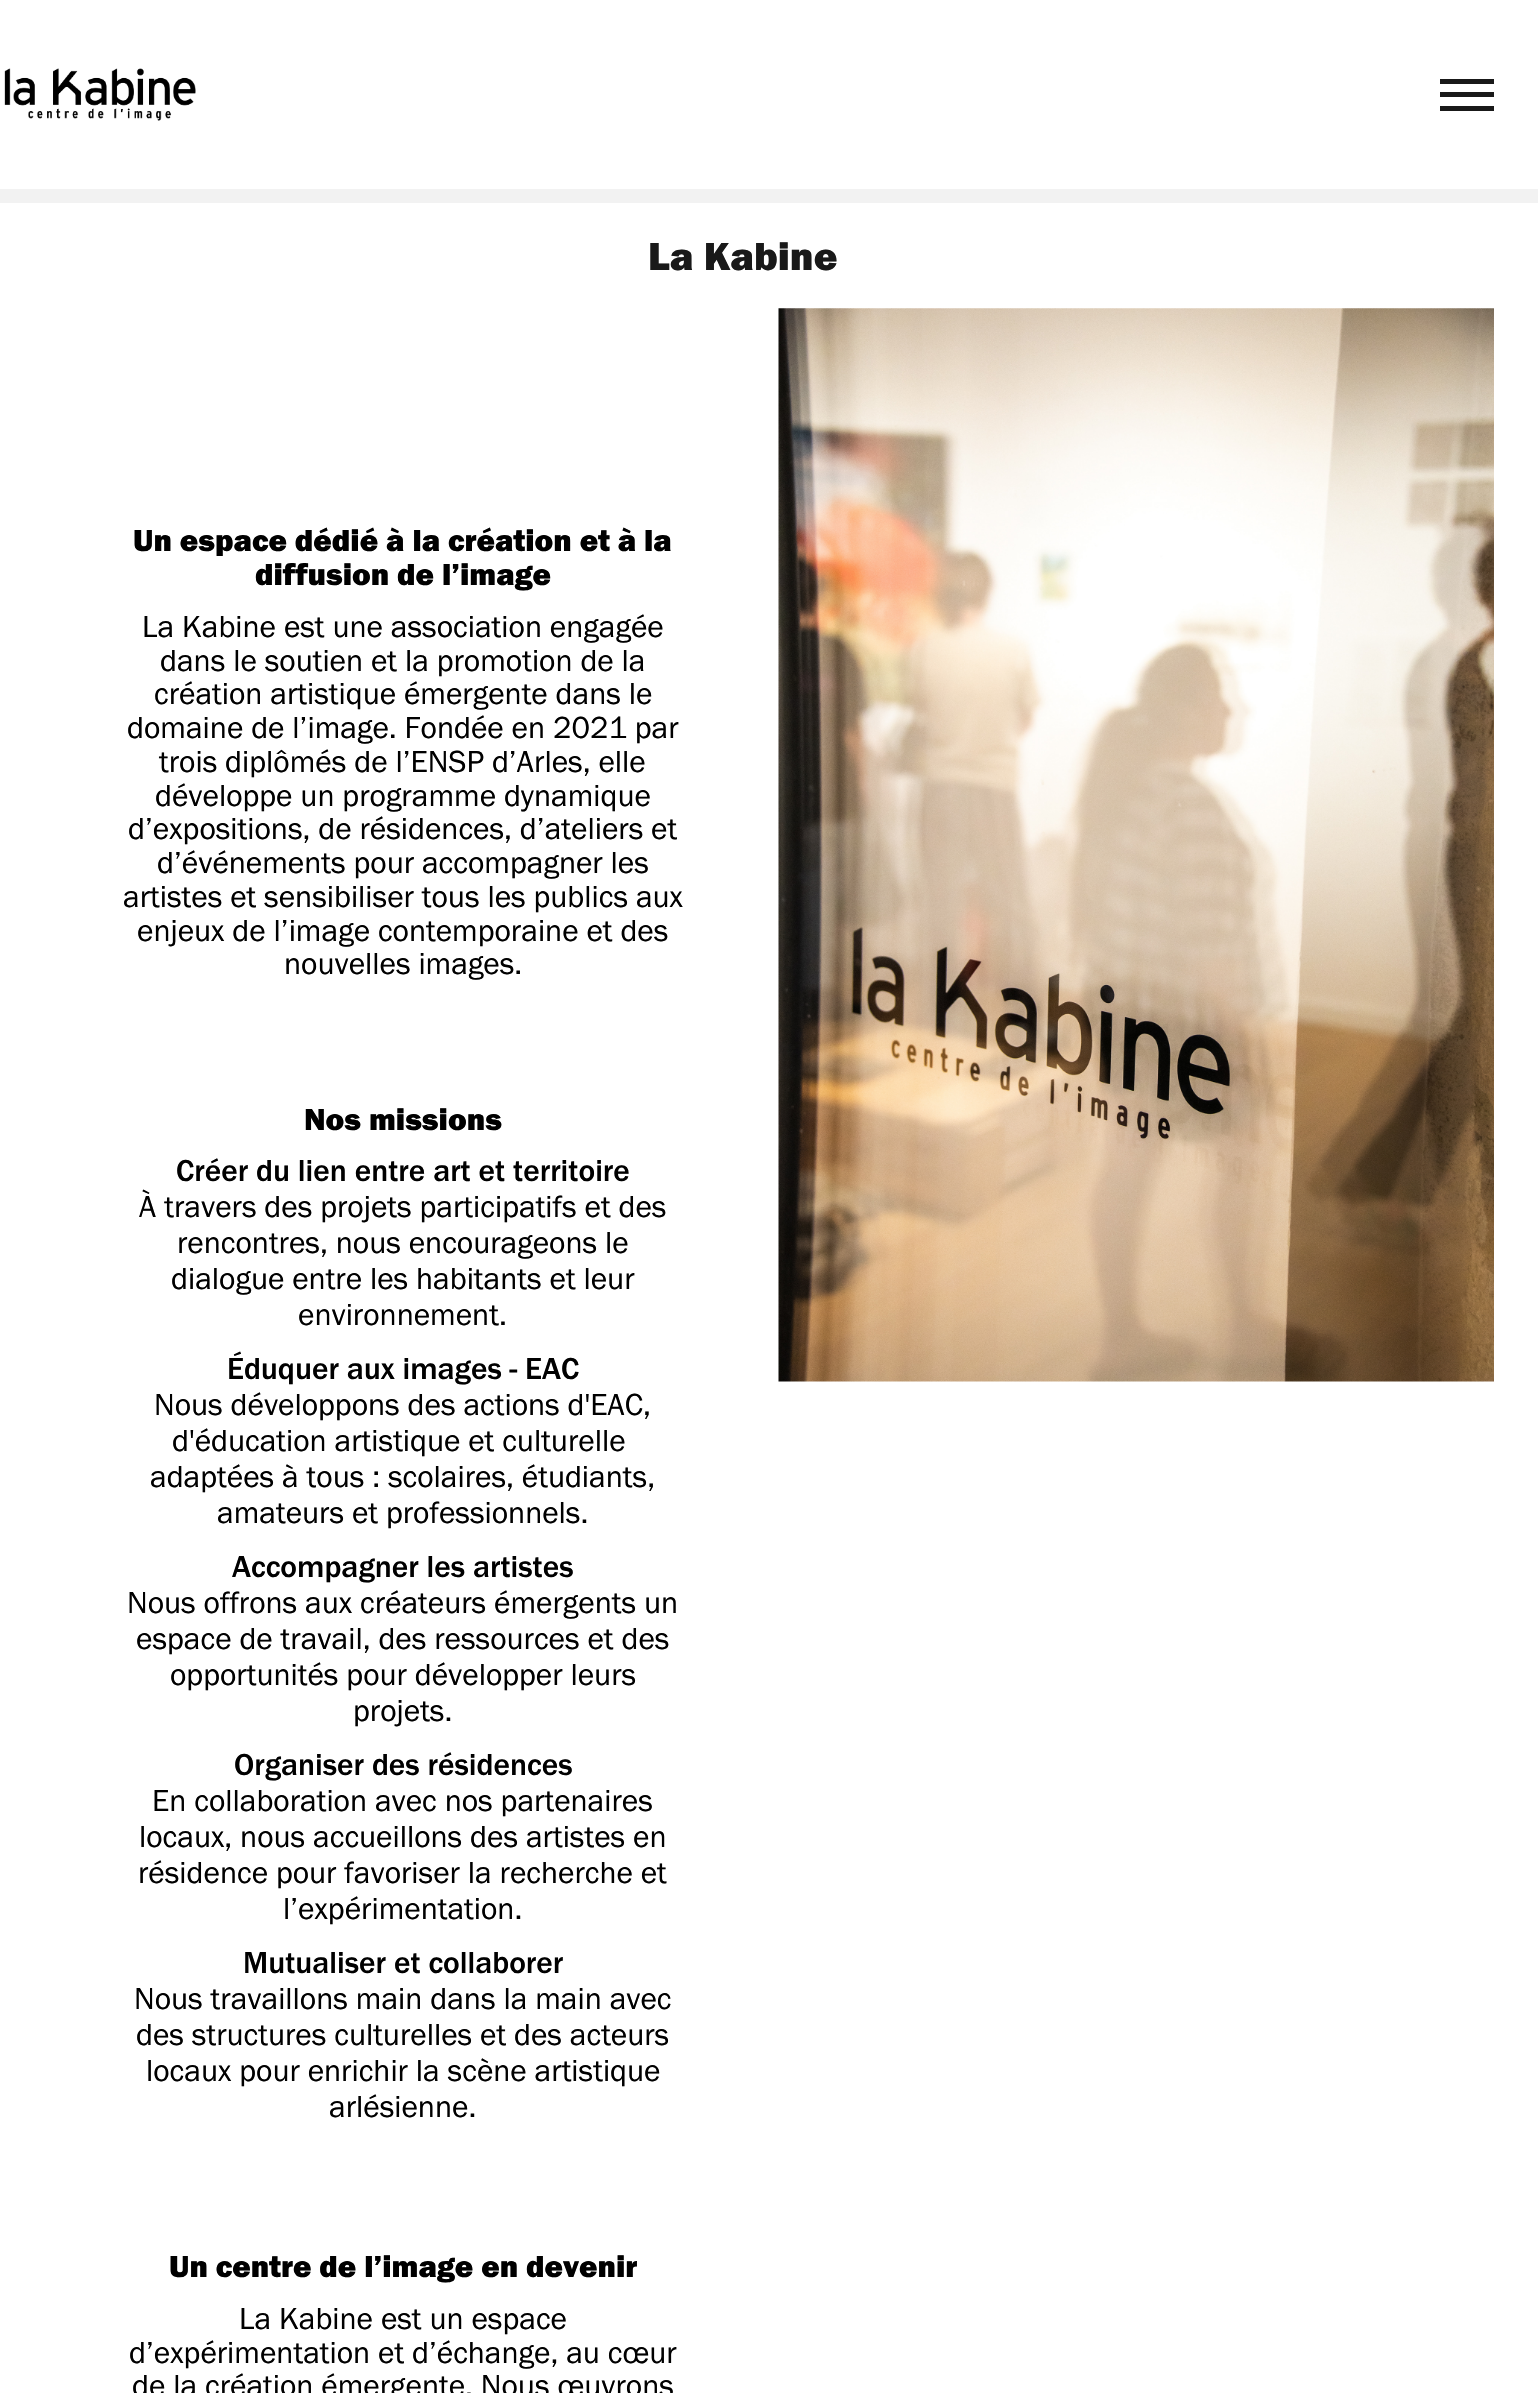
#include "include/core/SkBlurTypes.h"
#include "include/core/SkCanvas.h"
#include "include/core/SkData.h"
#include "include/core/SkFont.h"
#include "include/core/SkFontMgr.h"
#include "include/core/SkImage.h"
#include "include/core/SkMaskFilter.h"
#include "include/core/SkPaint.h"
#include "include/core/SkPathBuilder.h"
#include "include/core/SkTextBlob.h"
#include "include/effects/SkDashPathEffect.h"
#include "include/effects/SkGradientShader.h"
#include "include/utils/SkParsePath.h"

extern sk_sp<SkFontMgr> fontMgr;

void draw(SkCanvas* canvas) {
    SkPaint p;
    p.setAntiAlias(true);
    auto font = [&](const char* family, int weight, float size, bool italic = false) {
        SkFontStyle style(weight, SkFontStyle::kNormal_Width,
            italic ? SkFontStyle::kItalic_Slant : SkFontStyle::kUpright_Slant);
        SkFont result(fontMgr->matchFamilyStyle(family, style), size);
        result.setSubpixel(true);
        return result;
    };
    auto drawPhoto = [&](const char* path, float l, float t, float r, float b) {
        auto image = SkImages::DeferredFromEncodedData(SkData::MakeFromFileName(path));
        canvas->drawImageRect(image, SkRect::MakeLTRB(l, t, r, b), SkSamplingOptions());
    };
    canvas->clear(0xFFFFFFFF);
    p.setColor(0xFFF2F2F2);
    canvas->drawRect(SkRect::MakeLTRB(0, 189, 1538, 203), p);
    drawPhoto("media/1.png", 4, 68, 196, 121);
    {
        const struct { float l, t, r, b; SkColor color; } items[] = {
            {1440, 79, 1494, 84, 0xFF191919},
            {1440, 92, 1494, 97, 0xFF191919},
            {1440, 106, 1494, 111, 0xFF191919},
        };
        for (auto [l, t, r, b, color] : items) {
            p.setColor(color);
            canvas->drawRect(SkRect::MakeLTRB(l, t, r, b), p);
        }
    }
    auto font1 = font("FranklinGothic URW", 900, 40.5f);
    canvas->drawString("La Kabine", 648, 270, font1, p);
    auto font2 = font("FranklinGothic URW", 900, 31.5f);
    p.setColor(0xFF000000);
    canvas->drawString("Un espace dédié à la création et à la", 133, 551, font2, p);
    canvas->drawString("diffusion de l’image", 255, 585, font2, p);
    auto font3 = font("FranklinGothic URW", 400, 31.5f);
    {
        const struct { const char* s; float x, y; } items[] = {
            {"La Kabine est une association engagée", 142, 637},
            {"dans le soutien et la promotion de la", 160, 671},
            {"création artistique émergente dans le", 154, 704},
            {"domaine de l’image. Fondée en 2021 par", 127, 738},
            {"trois diplômés de l’ENSP d’Arles, elle", 159, 772},
            {"développe un programme dynamique", 155, 806},
            {"d’expositions, de résidences, d’ateliers et", 128, 839},
            {"d’événements pour accompagner les", 157, 873},
            {"artistes et sensibiliser tous les publics aux", 123, 907},
            {"enjeux de l’image contemporaine et des", 137, 941},
            {"nouvelles images.", 284, 974},
        };
        for (auto [s, x, y] : items) {
            canvas->drawString(s, x, y, font3, p);
        }
    }
    canvas->drawString("Nos missions", 304, 1130, font2, p);
    auto font4 = font("FranklinGothic URW", 500, 31.5f);
    canvas->drawString("Créer du lien entre art et territoire", 176, 1181, font4, p);
    {
        const struct { const char* s; float x, y; } items[] = {
            {"À travers des projets participatifs et des", 139, 1217},
            {"rencontres, nous encourageons le", 177, 1253},
            {"dialogue entre les habitants et leur", 171, 1289},
            {"environnement.", 298, 1325},
        };
        for (auto [s, x, y] : items) {
            canvas->drawString(s, x, y, font3, p);
        }
    }
    canvas->drawString("Éduquer aux images - EAC", 227, 1379, font4, p);
    {
        const struct { const char* s; float x, y; } items[] = {
            {"Nous développons des actions d'EAC,", 154, 1415},
            {"d'éducation artistique et culturelle", 172, 1451},
            {"adaptées à tous : scolaires, étudiants,", 150, 1487},
            {"amateurs et professionnels.", 217, 1523},
        };
        for (auto [s, x, y] : items) {
            canvas->drawString(s, x, y, font3, p);
        }
    }
    canvas->drawString("Accompagner les artistes", 232, 1577, font4, p);
    {
        const struct { const char* s; float x, y; } items[] = {
            {"Nous offrons aux créateurs émergents un", 127, 1613},
            {"espace de travail, des ressources et des", 136, 1649},
            {"opportunités pour développer leurs", 170, 1685},
            {"projets.", 353, 1721},
        };
        for (auto [s, x, y] : items) {
            canvas->drawString(s, x, y, font3, p);
        }
    }
    canvas->drawString("Organiser des résidences", 234, 1775, font4, p);
    {
        const struct { const char* s; float x, y; } items[] = {
            {"En collaboration avec nos partenaires", 152, 1811},
            {"locaux, nous accueillons des artistes en", 139, 1847},
            {"résidence pour favoriser la recherche et", 138, 1883},
            {"l’expérimentation.", 283, 1919},
        };
        for (auto [s, x, y] : items) {
            canvas->drawString(s, x, y, font3, p);
        }
    }
    canvas->drawString("Mutualiser et collaborer", 243, 1973, font4, p);
    {
        const struct { const char* s; float x, y; } items[] = {
            {"Nous travaillons main dans la main avec", 134, 2009},
            {"des structures culturelles et des acteurs", 136, 2045},
            {"locaux pour enrichir la scène artistique", 146, 2081},
            {"arlésienne.", 329, 2117},
        };
        for (auto [s, x, y] : items) {
            canvas->drawString(s, x, y, font3, p);
        }
    }
    canvas->drawString("Un centre de l’image en devenir", 169, 2277, font2, p);
    {
        const struct { const char* s; float x, y; } items[] = {
            {"La Kabine est un espace", 239, 2329},
            {"d’expérimentation et d’échange, au cœur", 129, 2363},
            {"de la création émergente. Nous œuvrons", 132, 2396},
        };
        for (auto [s, x, y] : items) {
            canvas->drawString(s, x, y, font3, p);
        }
    }
    drawPhoto("media/2.png", 778, 308, 1494, 1382);
}
